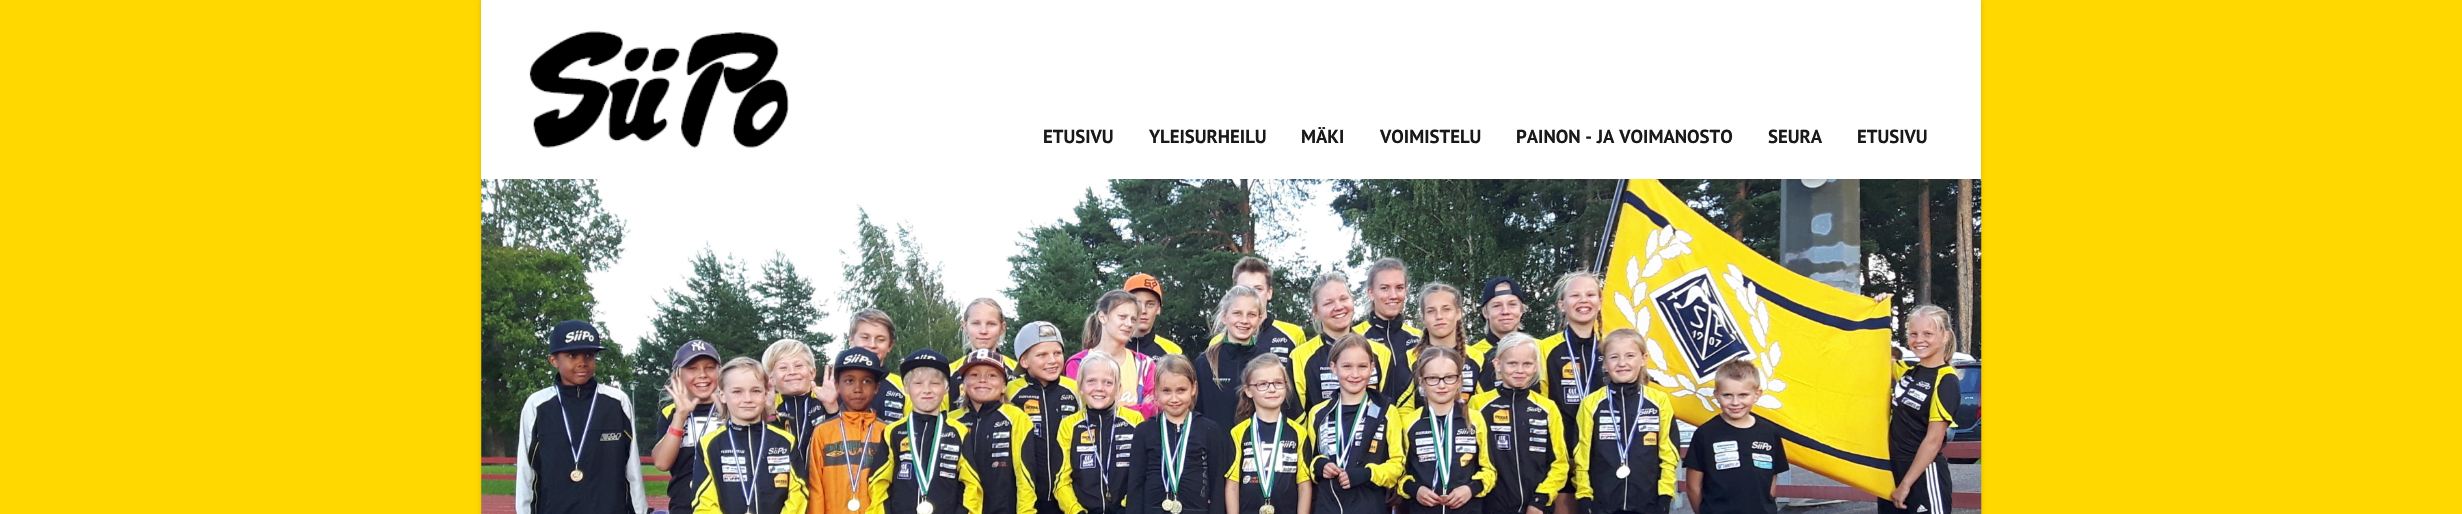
#include "include/core/SkBlurTypes.h"
#include "include/core/SkCanvas.h"
#include "include/core/SkData.h"
#include "include/core/SkFont.h"
#include "include/core/SkFontMgr.h"
#include "include/core/SkImage.h"
#include "include/core/SkMaskFilter.h"
#include "include/core/SkPaint.h"
#include "include/core/SkPathBuilder.h"
#include "include/core/SkTextBlob.h"
#include "include/effects/SkDashPathEffect.h"
#include "include/effects/SkGradientShader.h"
#include "include/utils/SkParsePath.h"

extern sk_sp<SkFontMgr> fontMgr;

void draw(SkCanvas* canvas) {
    SkPaint p;
    p.setAntiAlias(true);
    auto font = [&](const char* family, int weight, float size, bool italic = false) {
        SkFontStyle style(weight, SkFontStyle::kNormal_Width,
            italic ? SkFontStyle::kItalic_Slant : SkFontStyle::kUpright_Slant);
        SkFont result(fontMgr->matchFamilyStyle(family, style), size);
        result.setSubpixel(true);
        return result;
    };
    auto drawPhoto = [&](const char* path, float l, float t, float r, float b) {
        auto image = SkImages::DeferredFromEncodedData(SkData::MakeFromFileName(path));
        canvas->drawImageRect(image, SkRect::MakeLTRB(l, t, r, b), SkSamplingOptions());
    };
    canvas->clear(0xFFFFD800);
    p.setColor(0x26000000);
    p.setMaskFilter(SkMaskFilter::MakeBlur(kNormal_SkBlurStyle, 2.5f));
    canvas->drawRect(SkRect::MakeLTRB(481, 0, 1981, 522), p);
    p.setMaskFilter(nullptr);
    drawPhoto("media/2.png", 481, 178, 1982, 514);
    p.setColor(0xFFFFFFFF);
    canvas->drawRect(SkRect::MakeLTRB(481, 0, 1981, 179), p);
    drawPhoto("media/1.png", 529, 31, 789, 148);
    auto font1 = font("PT Sans", 700, 18.75f);
    p.setColor(0xFF191919);
    {
        const struct { const char* s; float x, y; } items[] = {
            {"ETUSIVU", 1043, 143},
            {"YLEISURHEILU", 1149, 143},
            {"MÄKI", 1301, 143},
            {"VOIMISTELU", 1380, 143},
            {"PAINON - JA VOIMANOSTO", 1516, 143},
            {"SEURA", 1768, 143},
            {"ETUSIVU", 1857, 143},
        };
        for (auto [s, x, y] : items) {
            canvas->drawString(s, x, y, font1, p);
        }
    }
}
